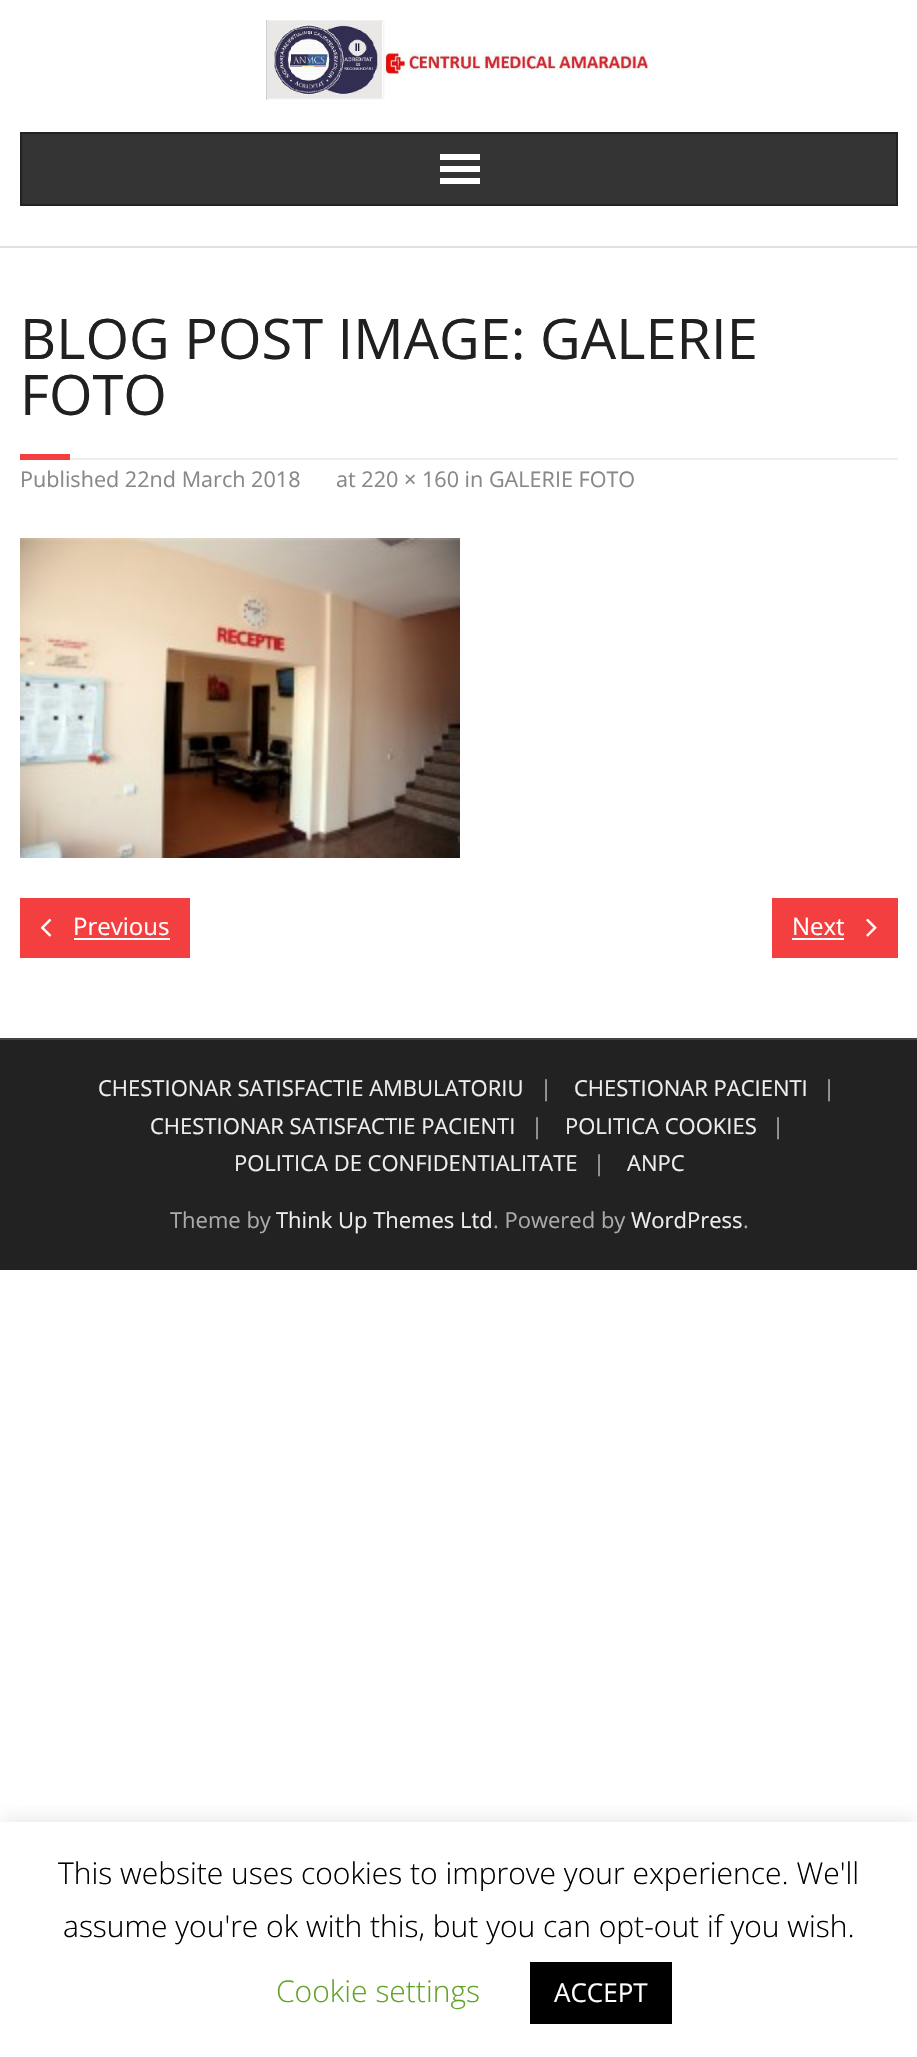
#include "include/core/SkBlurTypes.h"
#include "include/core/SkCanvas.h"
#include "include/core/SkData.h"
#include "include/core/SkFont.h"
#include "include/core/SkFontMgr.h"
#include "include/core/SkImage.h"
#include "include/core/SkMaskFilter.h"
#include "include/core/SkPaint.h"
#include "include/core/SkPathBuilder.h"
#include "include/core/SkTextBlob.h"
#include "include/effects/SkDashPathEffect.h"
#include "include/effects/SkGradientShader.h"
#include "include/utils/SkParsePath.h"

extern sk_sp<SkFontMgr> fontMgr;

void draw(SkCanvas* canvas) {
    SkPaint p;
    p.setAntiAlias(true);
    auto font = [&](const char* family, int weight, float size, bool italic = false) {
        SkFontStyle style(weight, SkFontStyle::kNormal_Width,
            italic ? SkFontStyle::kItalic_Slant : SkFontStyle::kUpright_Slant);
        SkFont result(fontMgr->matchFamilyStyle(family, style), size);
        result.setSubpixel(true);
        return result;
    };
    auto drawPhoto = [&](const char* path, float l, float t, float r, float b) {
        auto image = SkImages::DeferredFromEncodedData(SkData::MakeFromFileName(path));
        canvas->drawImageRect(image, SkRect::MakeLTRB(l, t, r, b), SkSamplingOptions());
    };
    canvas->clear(0xFFFFFFFF);
    p.setColor(0xFFE0E0E0);
    canvas->drawRect(SkRect::MakeLTRB(0, 246, 917, 248), p);
    drawPhoto("media/1.png", 266, 20, 651, 100);
    p.setColor(0xFF333333);
    canvas->drawRect(SkRect::MakeLTRB(21, 133, 897, 205), p);
    p.setStyle(SkPaint::kStroke_Style);
    p.setStrokeWidth(2);
    p.setColor(0xFF222222);
    canvas->drawRect(SkRect::MakeLTRB(21, 133, 897, 205), p);
    p.setStyle(SkPaint::kFill_Style);
    {
        const struct { float l, t, r, b; SkColor color; } items[] = {
            {440, 154, 480, 160, 0xFFFFFFFF},
            {440, 166, 480, 172, 0xFFFFFFFF},
            {440, 178, 480, 184, 0xFFFFFFFF},
        };
        for (auto [l, t, r, b, color] : items) {
            p.setColor(color);
            canvas->drawRect(SkRect::MakeLTRB(l, t, r, b), p);
        }
    }
    auto font1 = font("Open Sans", 400, 56);
    p.setColor(0xFF202020);
    canvas->drawString("BLOG POST IMAGE: GALERIE", 20, 359, font1, p);
    canvas->drawString("FOTO", 20, 415, font1, p);
    p.setColor(0xFFF33F3F);
    canvas->drawRect(SkRect::MakeLTRB(20, 454, 70, 460), p);
    p.setColor(0xFFEEEEEE);
    canvas->drawRect(SkRect::MakeLTRB(70, 458, 898, 460), p);
    auto font2 = font("Open Sans", 400, 21.6f);
    p.setColor(0xFF888888);
    canvas->drawString("Published 22nd March 2018", 20, 487, font2, p);
    canvas->drawString("at 220 × 160 in GALERIE FOTO", 336, 487, font2, p);
    drawPhoto("media/2.png", 20, 538, 460, 858);
    p.setColor(0xFFF33F3F);
    canvas->drawRect(SkRect::MakeLTRB(20, 898, 190, 958), p);
    drawPhoto("media/3.png", 40, 918, 52, 937);
    auto font3 = font("Open Sans", 400, 24);
    p.setColor(0xFFFFFFFF);
    canvas->drawString("Previous", 73, 935, font3, p);
    canvas->drawRect(SkRect::MakeLTRB(74, 938, 170, 940), p);
    p.setColor(0xFFF33F3F);
    canvas->drawRect(SkRect::MakeLTRB(772, 898, 898, 958), p);
    p.setColor(0xFFFFFFFF);
    canvas->drawString("Next", 792, 935, font3, p);
    canvas->drawRect(SkRect::MakeLTRB(792, 938, 844, 940), p);
    drawPhoto("media/4.png", 866, 918, 877, 937);
    p.setColor(0xFF222222);
    canvas->drawRect(SkRect::MakeLTRB(0, 1040, 917, 1270), p);
    p.setColor(0xFF444444);
    canvas->drawRect(SkRect::MakeLTRB(0, 1038, 917, 1040), p);
    auto font4 = font("Open Sans", 400, 22);
    p.setColor(0xFFEEEEEE);
    canvas->drawString("CHESTIONAR SATISFACTIE AMBULATORIU", 98, 1096, font4, p);
    p.setColor(0xFFAAAAAA);
    canvas->drawString("|", 540, 1096, font4, p);
    p.setColor(0xFFEEEEEE);
    canvas->drawString("CHESTIONAR PACIENTI", 574, 1096, font4, p);
    p.setColor(0xFFAAAAAA);
    canvas->drawString("|", 823, 1096, font4, p);
    p.setColor(0xFFEEEEEE);
    canvas->drawString("CHESTIONAR SATISFACTIE PACIENTI", 150, 1134, font4, p);
    p.setColor(0xFFAAAAAA);
    canvas->drawString("|", 531, 1134, font4, p);
    p.setColor(0xFFEEEEEE);
    canvas->drawString("POLITICA COOKIES", 565, 1134, font4, p);
    p.setColor(0xFFAAAAAA);
    canvas->drawString("|", 772, 1134, font4, p);
    p.setColor(0xFFEEEEEE);
    canvas->drawString("POLITICA DE CONFIDENTIALITATE", 234, 1171, font4, p);
    p.setColor(0xFFAAAAAA);
    canvas->drawString("|", 593, 1171, font4, p);
    p.setColor(0xFFEEEEEE);
    canvas->drawString("ANPC", 627, 1171, font4, p);
    p.setColor(0xFFAAAAAA);
    canvas->drawString("Theme by", 170, 1228, font4, p);
    p.setColor(0xFFEEEEEE);
    canvas->drawString("Think Up Themes Ltd", 276, 1228, font4, p);
    p.setColor(0xFFAAAAAA);
    canvas->drawString(". Powered by", 493, 1228, font4, p);
    p.setColor(0xFFEEEEEE);
    canvas->drawString("WordPress", 631, 1228, font4, p);
    p.setColor(0xFFAAAAAA);
    canvas->drawString(".", 743, 1228, font4, p);
    canvas->save();
    canvas->clipRect(SkRect::MakeLTRB(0, 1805, 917, 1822));
    p.setColor(0x4DACABAB);
    p.setMaskFilter(SkMaskFilter::MakeBlur(kNormal_SkBlurStyle, 10));
    canvas->drawRect(SkRect::MakeLTRB(0, 1820, 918, 2056), p);
    p.setMaskFilter(nullptr);
    canvas->restore();
    auto font5 = font("Open Sans", 300, 30);
    p.setColor(0xFF000000);
    canvas->drawString("This website uses cookies to improve your experience. We'll", 58, 1884, font5, p);
    canvas->drawString("assume you're ok with this, but you can opt-out if you wish.", 63, 1937, font5, p);
    p.setColor(0xFF62A329);
    canvas->drawString("Cookie settings", 276, 2002, font5, p);
    p.setColor(0xFF000000);
    canvas->drawRect(SkRect::MakeLTRB(530, 1962, 672, 2024), p);
    auto font6 = font("Open Sans", 400, 26);
    p.setColor(0xFFFFFFFF);
    canvas->drawString("ACCEPT", 554, 2002, font6, p);
}
